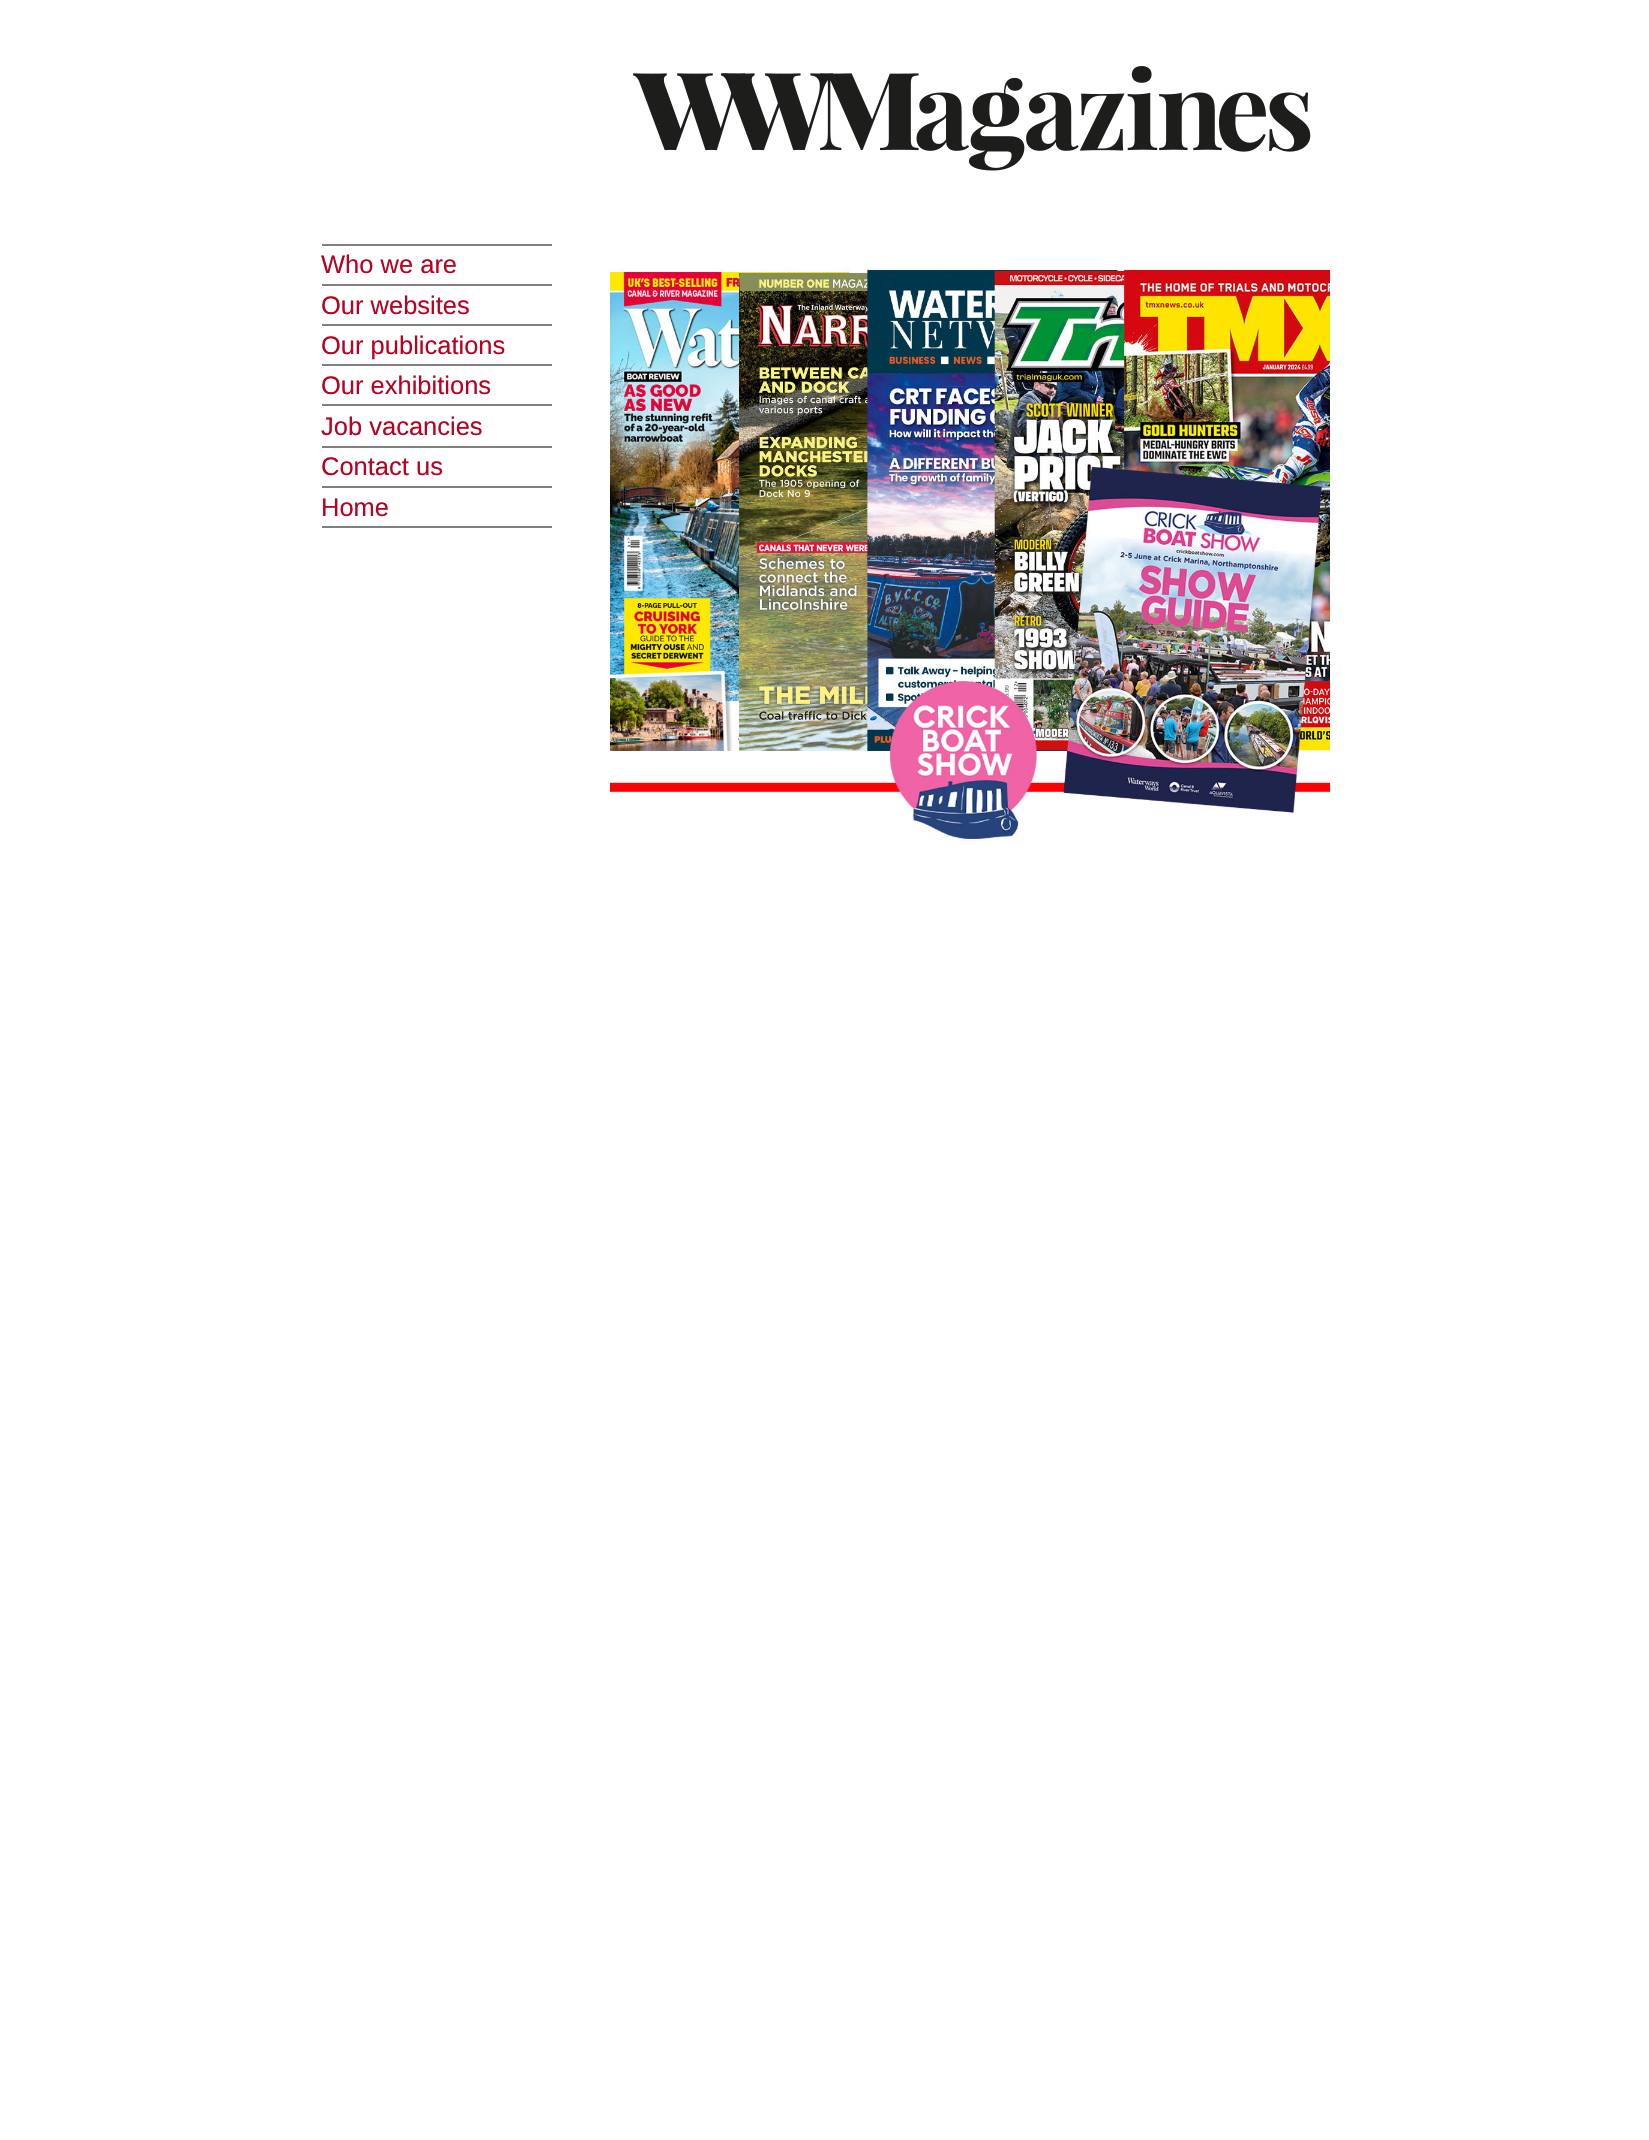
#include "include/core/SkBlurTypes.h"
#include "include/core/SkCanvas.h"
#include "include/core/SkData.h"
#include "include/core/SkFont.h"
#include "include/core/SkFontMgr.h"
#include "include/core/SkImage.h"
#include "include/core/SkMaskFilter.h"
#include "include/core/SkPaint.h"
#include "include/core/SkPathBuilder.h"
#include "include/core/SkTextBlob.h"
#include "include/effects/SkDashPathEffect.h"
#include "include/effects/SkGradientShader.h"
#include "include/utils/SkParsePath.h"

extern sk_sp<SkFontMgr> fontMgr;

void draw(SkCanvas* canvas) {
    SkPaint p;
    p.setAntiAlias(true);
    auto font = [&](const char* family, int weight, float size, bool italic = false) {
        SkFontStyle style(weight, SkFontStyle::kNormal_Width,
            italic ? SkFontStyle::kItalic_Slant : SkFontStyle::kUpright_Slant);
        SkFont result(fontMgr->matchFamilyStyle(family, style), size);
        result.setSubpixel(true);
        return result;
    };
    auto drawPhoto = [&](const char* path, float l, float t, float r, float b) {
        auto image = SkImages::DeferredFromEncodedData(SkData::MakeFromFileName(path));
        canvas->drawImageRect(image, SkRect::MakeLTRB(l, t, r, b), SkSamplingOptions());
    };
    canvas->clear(0xFFFFFFFF);
    drawPhoto("media/1.png", 633, 66, 1311, 171);
    p.setColor(0xFF808080);
    canvas->drawRect(SkRect::MakeLTRB(322, 526, 552, 528), p);
    canvas->drawRect(SkRect::MakeLTRB(322, 244, 552, 246), p);
    auto font1 = font("Liberation Sans", 400, 25.5f);
    p.setColor(0xFFBB0022);
    canvas->drawString("Who we are", 321, 273, font1, p);
    p.setColor(0xFF808080);
    canvas->drawRect(SkRect::MakeLTRB(322, 284, 552, 286), p);
    p.setColor(0xFFBB0022);
    canvas->drawString("Our websites", 321, 314, font1, p);
    p.setColor(0xFF808080);
    canvas->drawRect(SkRect::MakeLTRB(322, 324, 552, 326), p);
    p.setColor(0xFFBB0022);
    canvas->drawString("Our publications", 321, 354, font1, p);
    p.setColor(0xFF808080);
    canvas->drawRect(SkRect::MakeLTRB(322, 364, 552, 366), p);
    p.setColor(0xFFBB0022);
    canvas->drawString("Our exhibitions", 321, 394, font1, p);
    p.setColor(0xFF808080);
    canvas->drawRect(SkRect::MakeLTRB(322, 404, 552, 406), p);
    p.setColor(0xFFBB0022);
    canvas->drawString("Job vacancies", 321, 435, font1, p);
    p.setColor(0xFF808080);
    canvas->drawRect(SkRect::MakeLTRB(322, 446, 552, 448), p);
    p.setColor(0xFFBB0022);
    canvas->drawString("Contact us", 321, 475, font1, p);
    p.setColor(0xFF808080);
    canvas->drawRect(SkRect::MakeLTRB(322, 486, 552, 488), p);
    p.setColor(0xFFBB0022);
    canvas->drawString("Home", 321, 516, font1, p);
    drawPhoto("media/2.png", 610, 268, 1330, 842);
}
